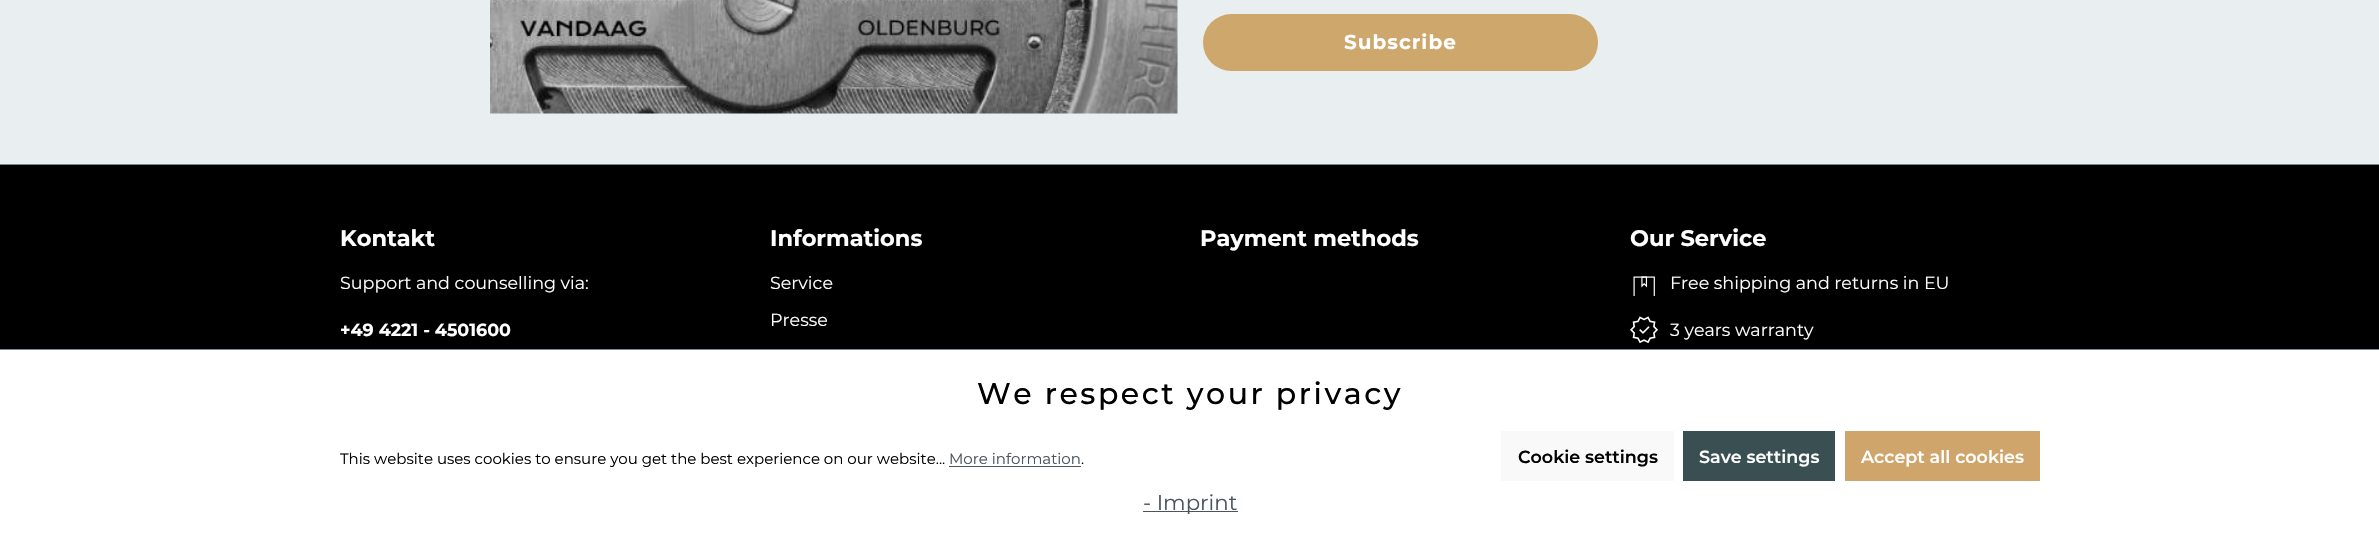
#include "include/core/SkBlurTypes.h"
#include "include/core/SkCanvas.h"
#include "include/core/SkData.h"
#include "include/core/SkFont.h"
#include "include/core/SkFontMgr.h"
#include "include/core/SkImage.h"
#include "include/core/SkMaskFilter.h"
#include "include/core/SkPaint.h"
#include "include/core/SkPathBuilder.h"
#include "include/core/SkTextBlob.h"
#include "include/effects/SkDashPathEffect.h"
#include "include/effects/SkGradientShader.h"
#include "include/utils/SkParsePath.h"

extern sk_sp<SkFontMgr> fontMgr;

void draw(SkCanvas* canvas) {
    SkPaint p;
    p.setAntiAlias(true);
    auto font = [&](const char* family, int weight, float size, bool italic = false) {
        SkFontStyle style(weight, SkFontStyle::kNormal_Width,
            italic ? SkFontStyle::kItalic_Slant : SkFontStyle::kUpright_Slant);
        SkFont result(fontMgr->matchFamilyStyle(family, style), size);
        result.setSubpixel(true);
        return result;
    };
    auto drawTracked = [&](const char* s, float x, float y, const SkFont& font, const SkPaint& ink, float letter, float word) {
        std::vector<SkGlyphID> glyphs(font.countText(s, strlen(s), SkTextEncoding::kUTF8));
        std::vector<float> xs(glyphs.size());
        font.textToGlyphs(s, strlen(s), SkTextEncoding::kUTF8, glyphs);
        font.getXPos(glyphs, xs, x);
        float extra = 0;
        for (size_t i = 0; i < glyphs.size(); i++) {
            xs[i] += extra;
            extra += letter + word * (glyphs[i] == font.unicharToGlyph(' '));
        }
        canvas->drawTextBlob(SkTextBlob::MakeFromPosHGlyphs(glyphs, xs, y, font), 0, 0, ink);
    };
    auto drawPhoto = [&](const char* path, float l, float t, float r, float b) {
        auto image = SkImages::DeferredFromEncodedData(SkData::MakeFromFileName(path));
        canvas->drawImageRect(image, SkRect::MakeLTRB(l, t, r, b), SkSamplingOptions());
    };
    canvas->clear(0xFFE9EFF1);
    drawPhoto("media/1.png", 490, 0, 1178, 114);
    p.setColor(0xFFCDA76B);
    canvas->drawRoundRect(SkRect::MakeLTRB(1203, 14, 1598, 71), 28.5f, 28.5f, p);
    auto font1 = font("Montserrat", 700, 20);
    p.setColor(0xFFFFFFFF);
    drawTracked("Subscribe", 1344, 49, font1, p, 1, 0);
    p.setColor(0xFF000000);
    canvas->drawRect(SkRect::MakeLTRB(0, 165, 2379, 349), p);
    p.setColor(0xFF798490);
    canvas->drawRect(SkRect::MakeLTRB(0, 164, 2379, 165), p);
    auto font2 = font("Montserrat", 700, 22.5f);
    p.setColor(0xFFFFFFFF);
    canvas->drawString("Kontakt", 340, 246, font2, p);
    auto font3 = font("Montserrat", 400, 17.5f);
    canvas->drawString("Support and counselling via:", 340, 289, font3, p);
    auto font4 = font("Montserrat", 700, 17.5f);
    canvas->drawString("+49 4221 - 4501600", 340, 336, font4, p);
    canvas->drawString("Informations", 770, 246, font2, p);
    canvas->drawString("Service", 770, 289, font3, p);
    canvas->drawString("Presse", 770, 326, font3, p);
    canvas->drawString("Payment methods", 1200, 246, font2, p);
    canvas->drawString("Our Service", 1630, 246, font2, p);
    drawPhoto("media/2.png", 1633, 276, 1655, 296);
    canvas->drawString("Free shipping and returns in EU", 1670, 289, font3, p);
    drawPhoto("media/3.png", 1630, 316, 1658, 344);
    canvas->drawString("3 years warranty", 1670, 336, font3, p);
    canvas->drawRect(SkRect::MakeLTRB(0, 350, 2379, 544), p);
    p.setColor(0xFF798490);
    canvas->drawRect(SkRect::MakeLTRB(0, 349, 2379, 350), p);
    auto font5 = font("Montserrat", 500, 30);
    p.setColor(0xFF000000);
    drawTracked("We respect your privacy", 977, 404, font5, p, 2.5f, 0);
    auto font6 = font("Montserrat", 400, 15);
    canvas->drawString("This website uses cookies to ensure you get the best experience on our website...", 340, 464, font6, p);
    p.setColor(0xFF4A545B);
    canvas->drawString("More information", 949, 464, font6, p);
    canvas->drawRect(SkRect::MakeLTRB(949, 466, 1081, 467), p);
    p.setColor(0xFF000000);
    canvas->drawString(".", 1081, 464, font6, p);
    p.setColor(0xFFF9F9F9);
    canvas->drawRect(SkRect::MakeLTRB(1501, 431, 1674, 481), p);
    auto font7 = font("Montserrat", 600, 17.5f);
    p.setColor(0xFF000000);
    canvas->drawString("Cookie settings", 1518, 463, font7, p);
    p.setColor(0xFF394F51);
    canvas->drawRect(SkRect::MakeLTRB(1683, 431, 1835, 481), p);
    p.setColor(0xFFFFFFFF);
    canvas->drawString("Save settings", 1699, 463, font7, p);
    p.setColor(0xFFCFA56B);
    canvas->drawRect(SkRect::MakeLTRB(1845, 431, 2040, 481), p);
    p.setColor(0xFFFFFFFF);
    canvas->drawString("Accept all cookies", 1861, 463, font7, p);
    p.setColor(0xFF4A545B);
    canvas->drawRect(SkRect::MakeLTRB(1143, 511, 1238, 512), p);
    auto font8 = font("Montserrat", 400, 21.25f);
    canvas->drawString("- Imprint", 1143, 510, font8, p);
}
